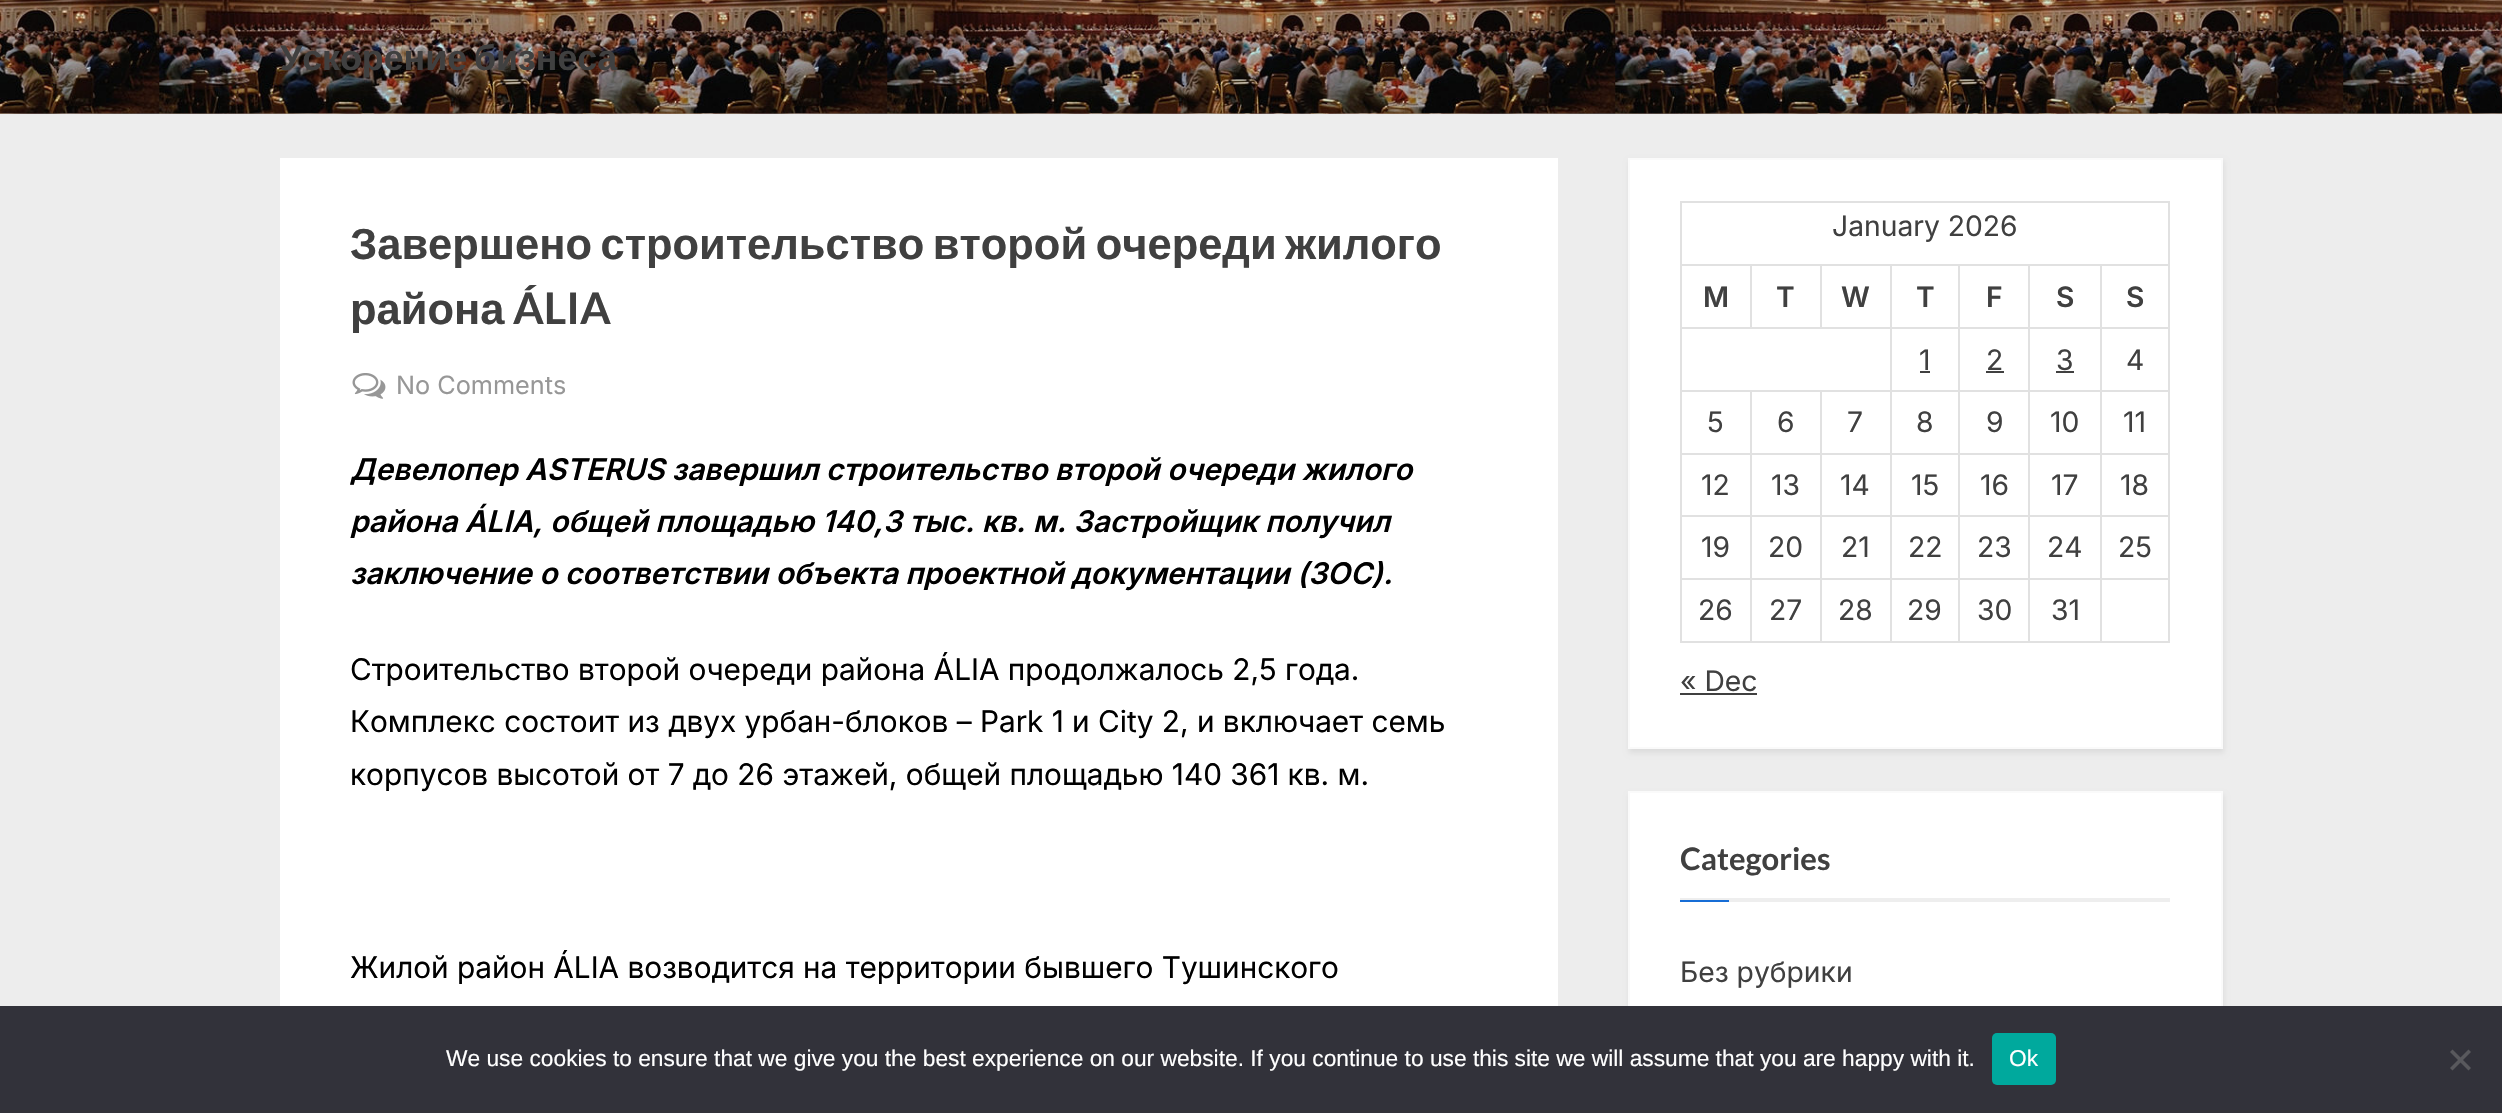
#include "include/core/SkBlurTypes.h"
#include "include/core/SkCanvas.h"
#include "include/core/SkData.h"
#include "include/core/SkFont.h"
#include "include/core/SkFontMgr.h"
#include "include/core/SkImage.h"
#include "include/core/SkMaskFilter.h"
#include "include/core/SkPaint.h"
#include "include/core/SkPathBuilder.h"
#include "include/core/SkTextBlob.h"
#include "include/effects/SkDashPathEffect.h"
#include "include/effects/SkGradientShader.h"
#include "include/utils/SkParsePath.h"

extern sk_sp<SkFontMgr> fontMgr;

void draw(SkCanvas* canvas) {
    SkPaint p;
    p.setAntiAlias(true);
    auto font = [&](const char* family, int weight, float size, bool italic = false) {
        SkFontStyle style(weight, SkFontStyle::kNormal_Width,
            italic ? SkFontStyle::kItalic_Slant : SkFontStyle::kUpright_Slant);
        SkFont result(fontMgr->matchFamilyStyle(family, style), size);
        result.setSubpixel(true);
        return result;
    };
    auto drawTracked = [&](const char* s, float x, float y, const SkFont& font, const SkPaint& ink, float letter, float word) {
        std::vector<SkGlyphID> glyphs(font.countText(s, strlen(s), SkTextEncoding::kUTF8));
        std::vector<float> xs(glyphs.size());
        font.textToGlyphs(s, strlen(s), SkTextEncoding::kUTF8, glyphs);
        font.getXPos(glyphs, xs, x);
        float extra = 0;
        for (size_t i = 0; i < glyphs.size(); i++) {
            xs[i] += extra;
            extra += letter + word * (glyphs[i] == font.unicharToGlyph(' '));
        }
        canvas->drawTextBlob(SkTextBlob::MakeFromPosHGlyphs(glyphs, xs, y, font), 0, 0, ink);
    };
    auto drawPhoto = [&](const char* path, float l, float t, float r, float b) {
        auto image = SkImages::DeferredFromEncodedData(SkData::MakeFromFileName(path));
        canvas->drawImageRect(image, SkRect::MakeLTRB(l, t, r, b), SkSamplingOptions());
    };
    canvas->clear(0xFFEDEDED);
    drawPhoto("media/1.png", 0, 0, 2502, 114);
    auto font1 = font("Liberation Sans", 700, 35.75f);
    p.setColor(0xFF404040);
    drawTracked("Ускорение бизнеса", 280, 70, font1, p, 0, -3);
    p.setColor(0xFFFFFFFF);
    canvas->drawRect(SkRect::MakeLTRB(280, 158, 1558, 1006), p);
    auto font2 = font("Liberation Sans", 700, 43.45f);
    p.setColor(0xFF404040);
    drawTracked("Завершено строительство второй очереди жилого", 350, 259, font2, p, 0, -3.5f);
    canvas->drawString("района", 350, 324, font2, p);
    auto font3 = font("Lato", 700, 43.45f);
    canvas->drawString("ÁLIA", 513, 324, font3, p);
    drawPhoto("media/2.png", 352, 373, 386, 399);
    auto font4 = font("Inter", 400, 25.25f);
    p.setColor(0xFF979797);
    canvas->drawString("No Comments", 396, 394, font4, p);
    auto font5 = font("Inter", 600, 29.75f, true);
    p.setColor(0xFF000000);
    {
        const struct { const char* s; float x, y; } items[] = {
            {"Девелопер ASTERUS завершил строительство второй очереди жилого", 350, 480},
            {"района ÁLIA, общей площадью 140,3 тыс. кв. м. Застройщик получил", 350, 532},
            {"заключение о соответствии объекта проектной документации (ЗОС).", 350, 584},
        };
        for (auto [s, x, y] : items) {
            canvas->drawString(s, x, y, font5, p);
        }
    }
    auto font6 = font("Inter", 400, 29.75f);
    {
        const struct { const char* s; float x, y; } items[] = {
            {"Строительство второй очереди района ÁLIA продолжалось 2,5 года.", 350, 680},
            {"Комплекс состоит из двух урбан-блоков – Park 1 и City 2, и включает семь", 350, 732},
            {"корпусов высотой от 7 до 26 этажей, общей площадью 140 361 кв. м.", 350, 785},
            {"Жилой район ÁLIA возводится на территории бывшего Тушинского", 350, 978},
        };
        for (auto [s, x, y] : items) {
            canvas->drawString(s, x, y, font6, p);
        }
    }
    p.setColor(0x12000000);
    p.setMaskFilter(SkMaskFilter::MakeBlur(kNormal_SkBlurStyle, 2.5f));
    canvas->drawRect(SkRect::MakeLTRB(1629, 161, 2224, 753), p);
    p.setMaskFilter(nullptr);
    p.setColor(0xFFFFFFFF);
    canvas->drawRect(SkRect::MakeLTRB(1629, 159, 2222, 748), p);
    p.setStyle(SkPaint::kStroke_Style);
    p.setStrokeWidth(2);
    p.setColor(0xFFFAFAFA);
    canvas->drawRect(SkRect::MakeLTRB(1629, 159, 2222, 748), p);
    p.setStyle(SkPaint::kFill_Style);
    {
        const struct { float l, t, r, b; SkColor color; } items[] = {
            {1680, 201, 2170, 203, 0xFFE1E1E1},
            {2168, 201, 2170, 642, 0xFFE1E1E1},
            {1680, 641, 2170, 643, 0xFFE1E1E1},
            {1680, 201, 1682, 642, 0xFFE1E1E1},
        };
        for (auto [l, t, r, b, color] : items) {
            p.setColor(color);
            canvas->drawRect(SkRect::MakeLTRB(l, t, r, b), p);
        }
    }
    auto font7 = font("Inter", 400, 28.25f);
    p.setColor(0xFF404040);
    canvas->drawString("January 2026", 1832, 236, font7, p);
    {
        const struct { float l, t, r, b; SkColor color; } items[] = {
            {2100, 264, 2170, 266, 0xFFE1E1E1},
            {2100, 327, 2170, 329, 0xFFE1E1E1},
            {2100, 390, 2170, 392, 0xFFE1E1E1},
            {2100, 453, 2170, 455, 0xFFE1E1E1},
            {2100, 515, 2170, 517, 0xFFE1E1E1},
            {2100, 578, 2170, 580, 0xFFE1E1E1},
            {2100, 578, 2102, 642, 0xFFE1E1E1},
            {2028, 578, 2102, 580, 0xFFE1E1E1},
            {2100, 515, 2102, 579, 0xFFE1E1E1},
            {2028, 515, 2102, 517, 0xFFE1E1E1},
            {2100, 453, 2102, 516, 0xFFE1E1E1},
            {2028, 453, 2102, 455, 0xFFE1E1E1},
            {2100, 390, 2102, 455, 0xFFE1E1E1},
            {2028, 390, 2102, 392, 0xFFE1E1E1},
            {2100, 327, 2102, 392, 0xFFE1E1E1},
            {2028, 327, 2102, 329, 0xFFE1E1E1},
            {2100, 264, 2102, 329, 0xFFE1E1E1},
            {2028, 264, 2102, 266, 0xFFE1E1E1},
            {2028, 578, 2030, 642, 0xFFE1E1E1},
            {1958, 578, 2030, 580, 0xFFE1E1E1},
            {2028, 515, 2030, 579, 0xFFE1E1E1},
            {1958, 515, 2030, 517, 0xFFE1E1E1},
            {2028, 453, 2030, 516, 0xFFE1E1E1},
            {1958, 453, 2030, 455, 0xFFE1E1E1},
            {2028, 390, 2030, 455, 0xFFE1E1E1},
            {1958, 390, 2030, 392, 0xFFE1E1E1},
            {2028, 327, 2030, 392, 0xFFE1E1E1},
            {1958, 327, 2030, 329, 0xFFE1E1E1},
            {2028, 264, 2030, 329, 0xFFE1E1E1},
            {1958, 264, 2030, 266, 0xFFE1E1E1},
            {1958, 578, 1960, 642, 0xFFE1E1E1},
            {1890, 578, 1960, 580, 0xFFE1E1E1},
            {1958, 515, 1960, 579, 0xFFE1E1E1},
            {1890, 515, 1960, 517, 0xFFE1E1E1},
            {1958, 453, 1960, 516, 0xFFE1E1E1},
            {1890, 453, 1960, 455, 0xFFE1E1E1},
            {1958, 390, 1960, 455, 0xFFE1E1E1},
            {1890, 390, 1960, 392, 0xFFE1E1E1},
            {1958, 327, 1960, 392, 0xFFE1E1E1},
            {1890, 327, 1960, 329, 0xFFE1E1E1},
            {1958, 264, 1960, 329, 0xFFE1E1E1},
            {1890, 264, 1960, 266, 0xFFE1E1E1},
            {1890, 578, 1892, 642, 0xFFE1E1E1},
            {1820, 578, 1892, 580, 0xFFE1E1E1},
            {1890, 515, 1892, 579, 0xFFE1E1E1},
            {1820, 515, 1892, 517, 0xFFE1E1E1},
            {1890, 453, 1892, 516, 0xFFE1E1E1},
            {1820, 453, 1892, 455, 0xFFE1E1E1},
            {1890, 390, 1892, 455, 0xFFE1E1E1},
            {1820, 390, 1892, 392, 0xFFE1E1E1},
            {1890, 327, 1892, 392, 0xFFE1E1E1},
            {1680, 327, 1892, 329, 0xFFE1E1E1},
            {1890, 264, 1892, 329, 0xFFE1E1E1},
            {1820, 264, 1892, 266, 0xFFE1E1E1},
            {1820, 264, 1822, 329, 0xFFE1E1E1},
            {1750, 264, 1822, 266, 0xFFE1E1E1},
            {1750, 264, 1752, 329, 0xFFE1E1E1},
            {1680, 264, 1752, 266, 0xFFE1E1E1},
        };
        for (auto [l, t, r, b, color] : items) {
            p.setColor(color);
            canvas->drawRect(SkRect::MakeLTRB(l, t, r, b), p);
        }
    }
    auto font8 = font("Inter", 600, 28.25f);
    p.setColor(0xFF404040);
    {
        const struct { const char* s; float x, y; } items[] = {
            {"M", 1703, 307},
            {"T", 1776, 307},
            {"W", 1841, 307},
            {"T", 1916, 307},
            {"F", 1986, 307},
            {"S", 2056, 307},
            {"S", 2126, 307},
        };
        for (auto [s, x, y] : items) {
            canvas->drawString(s, x, y, font8, p);
        }
    }
    canvas->drawString("1", 1919, 370, font7, p);
    canvas->drawRect(SkRect::MakeLTRB(1920, 371, 1930, 373), p);
    canvas->drawString("2", 1986, 370, font7, p);
    canvas->drawRect(SkRect::MakeLTRB(1986, 371, 2004, 373), p);
    canvas->drawString("3", 2056, 370, font7, p);
    canvas->drawRect(SkRect::MakeLTRB(2056, 371, 2074, 373), p);
    canvas->drawString("4", 2126, 370, font7, p);
    {
        const struct { float l, t, r, b; SkColor color; } items[] = {
            {1820, 578, 1822, 642, 0xFFE1E1E1},
            {1750, 578, 1822, 580, 0xFFE1E1E1},
            {1820, 515, 1822, 579, 0xFFE1E1E1},
            {1750, 515, 1822, 517, 0xFFE1E1E1},
            {1820, 453, 1822, 516, 0xFFE1E1E1},
            {1750, 453, 1822, 455, 0xFFE1E1E1},
            {1820, 390, 1822, 455, 0xFFE1E1E1},
            {1750, 390, 1822, 392, 0xFFE1E1E1},
            {1750, 578, 1752, 642, 0xFFE1E1E1},
            {1680, 578, 1752, 580, 0xFFE1E1E1},
            {1750, 515, 1752, 579, 0xFFE1E1E1},
            {1680, 515, 1752, 517, 0xFFE1E1E1},
            {1750, 453, 1752, 516, 0xFFE1E1E1},
            {1680, 453, 1752, 455, 0xFFE1E1E1},
            {1750, 390, 1752, 455, 0xFFE1E1E1},
            {1680, 390, 1752, 392, 0xFFE1E1E1},
        };
        for (auto [l, t, r, b, color] : items) {
            p.setColor(color);
            canvas->drawRect(SkRect::MakeLTRB(l, t, r, b), p);
        }
    }
    p.setColor(0xFF404040);
    {
        const struct { const char* s; float x, y; } items[] = {
            {"5", 1707, 432},
            {"6", 1777, 432},
            {"7", 1847, 432},
            {"8", 1916, 432},
            {"9", 1986, 432},
            {"10", 2050, 432},
            {"11", 2123, 432},
            {"12", 1701, 495},
            {"13", 1771, 495},
            {"14", 1840, 495},
            {"15", 1911, 495},
            {"16", 1980, 495},
            {"17", 2051, 495},
            {"18", 2120, 495},
            {"19", 1701, 557},
            {"20", 1768, 557},
            {"21", 1841, 557},
            {"22", 1908, 557},
            {"23", 1977, 557},
            {"24", 2047, 557},
            {"25", 2118, 557},
            {"26", 1698, 620},
            {"27", 1769, 620},
            {"28", 1838, 620},
            {"29", 1907, 620},
            {"30", 1977, 620},
            {"31", 2051, 620},
            {"« Dec", 1680, 691},
        };
        for (auto [s, x, y] : items) {
            canvas->drawString(s, x, y, font7, p);
        }
    }
    canvas->drawRect(SkRect::MakeLTRB(1680, 693, 1757, 695), p);
    p.setColor(0x12000000);
    p.setMaskFilter(SkMaskFilter::MakeBlur(kNormal_SkBlurStyle, 2.5f));
    canvas->drawRect(SkRect::MakeLTRB(1629, 795, 2224, 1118), p);
    p.setMaskFilter(nullptr);
    p.setColor(0xFFFFFFFF);
    canvas->drawRect(SkRect::MakeLTRB(1630, 793, 2221, 1006), p);
    p.setStyle(SkPaint::kStroke_Style);
    p.setColor(0xFFFAFAFA);
    canvas->drawRect(SkRect::MakeLTRB(1629, 792, 2222, 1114), p);
    p.setStyle(SkPaint::kFill_Style);
    p.setColor(0xFFEEEEEE);
    canvas->drawRect(SkRect::MakeLTRB(1680, 898, 2170, 902), p);
    auto font9 = font("Lato", 700, 31);
    p.setColor(0xFF404040);
    canvas->drawString("Categories", 1680, 870, font9, p);
    p.setColor(0xFF166DD6);
    canvas->drawRect(SkRect::MakeLTRB(1680, 900, 1729, 902), p);
    p.setColor(0xFF404040);
    canvas->drawString("Без рубрики", 1680, 982, font7, p);
    p.setColor(0xFF32323A);
    canvas->drawRect(SkRect::MakeLTRB(0, 1006, 2502, 1113), p);
    auto font10 = font("Liberation Sans", 400, 22.75f);
    p.setColor(0xFFFFFFFF);
    canvas->drawString("We use cookies to ensure that we give you the best experience on our website. If you continue to use this site we will assume that you are happy with it.", 446, 1066, font10, p);
    p.setColor(0xFF00A99D);
    canvas->drawRoundRect(SkRect::MakeLTRB(1992, 1033, 2056, 1085), 5, 5, p);
    p.setColor(0xFFFFFFFF);
    canvas->drawString("Ok", 2009, 1066, font10, p);
    p.setColor(0xFF59595D);
    canvas->drawPath(SkPathBuilder().moveTo(2468.5f, 1049.5f).lineTo(2471, 1052).lineTo(2452.5f, 1070.5f).lineTo(2450, 1068).close().detach(), p);
    canvas->drawPath(SkPathBuilder().moveTo(2450, 1052).lineTo(2452.5f, 1049.5f).lineTo(2471, 1068).lineTo(2468.5f, 1070.5f).close().detach(), p);
}
